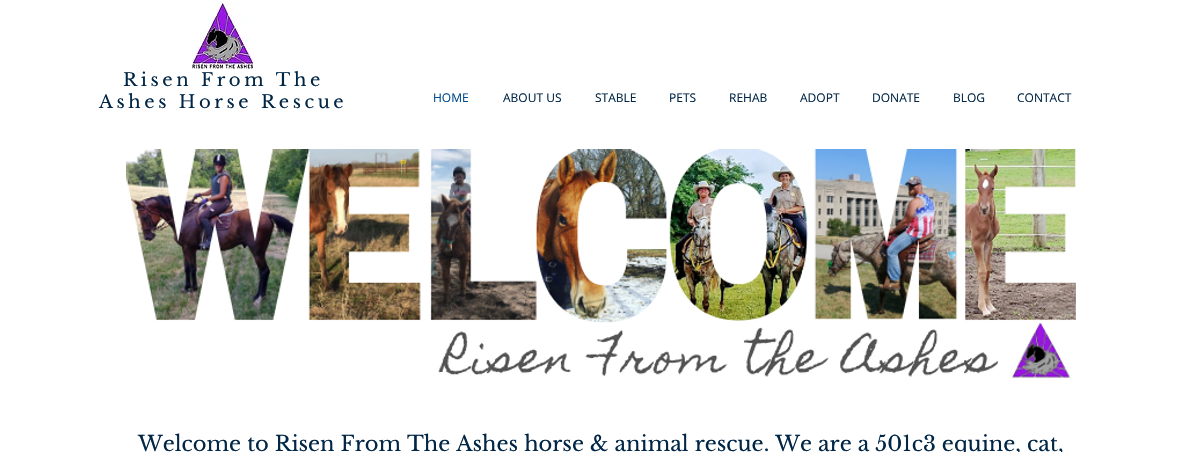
#include "include/core/SkBlurTypes.h"
#include "include/core/SkCanvas.h"
#include "include/core/SkData.h"
#include "include/core/SkFont.h"
#include "include/core/SkFontMgr.h"
#include "include/core/SkImage.h"
#include "include/core/SkMaskFilter.h"
#include "include/core/SkPaint.h"
#include "include/core/SkPathBuilder.h"
#include "include/core/SkTextBlob.h"
#include "include/effects/SkDashPathEffect.h"
#include "include/effects/SkGradientShader.h"
#include "include/utils/SkParsePath.h"

extern sk_sp<SkFontMgr> fontMgr;

void draw(SkCanvas* canvas) {
    SkPaint p;
    p.setAntiAlias(true);
    auto font = [&](const char* family, int weight, float size, bool italic = false) {
        SkFontStyle style(weight, SkFontStyle::kNormal_Width,
            italic ? SkFontStyle::kItalic_Slant : SkFontStyle::kUpright_Slant);
        SkFont result(fontMgr->matchFamilyStyle(family, style), size);
        result.setSubpixel(true);
        return result;
    };
    auto drawTracked = [&](const char* s, float x, float y, const SkFont& font, const SkPaint& ink, float letter, float word) {
        std::vector<SkGlyphID> glyphs(font.countText(s, strlen(s), SkTextEncoding::kUTF8));
        std::vector<float> xs(glyphs.size());
        font.textToGlyphs(s, strlen(s), SkTextEncoding::kUTF8, glyphs);
        font.getXPos(glyphs, xs, x);
        float extra = 0;
        for (size_t i = 0; i < glyphs.size(); i++) {
            xs[i] += extra;
            extra += letter + word * (glyphs[i] == font.unicharToGlyph(' '));
        }
        canvas->drawTextBlob(SkTextBlob::MakeFromPosHGlyphs(glyphs, xs, y, font), 0, 0, ink);
    };
    auto drawPhoto = [&](const char* path, float l, float t, float r, float b) {
        auto image = SkImages::DeferredFromEncodedData(SkData::MakeFromFileName(path));
        canvas->drawImageRect(image, SkRect::MakeLTRB(l, t, r, b), SkSamplingOptions());
    };
    canvas->clear(0xFFFFFFFF);
    drawPhoto("media/1.png", 192, 1, 253, 69);
    auto font1 = font("Libre Baskerville", 400, 18);
    p.setColor(0xFF012646);
    drawTracked("Risen From The", 123, 86, font1, p, 3.6f, 0);
    drawTracked("Ashes Horse Rescue", 99, 108, font1, p, 3.6f, 0);
    auto font2 = font("Open Sans", 400, 12);
    p.setColor(0xFF034C8C);
    canvas->drawString("HOME", 433, 102, font2, p);
    p.setColor(0xFF012646);
    {
        const struct { const char* s; float x, y; } items[] = {
            {"ABOUT US", 503, 102},
            {"STABLE", 595, 102},
            {"PETS", 669, 102},
            {"REHAB", 729, 102},
            {"ADOPT", 800, 102},
            {"DONATE", 872, 102},
            {"BLOG", 953, 102},
            {"CONTACT", 1017, 102},
        };
        for (auto [s, x, y] : items) {
            canvas->drawString(s, x, y, font2, p);
        }
    }
    drawPhoto("media/2.png", 126, 149, 1076, 379);
    auto font3 = font("Libre Baskerville", 400, 21);
    canvas->drawString("Welcome to Risen From The Ashes horse & animal rescue. We are a 501c3 equine, cat,", 138, 451, font3, p);
}
